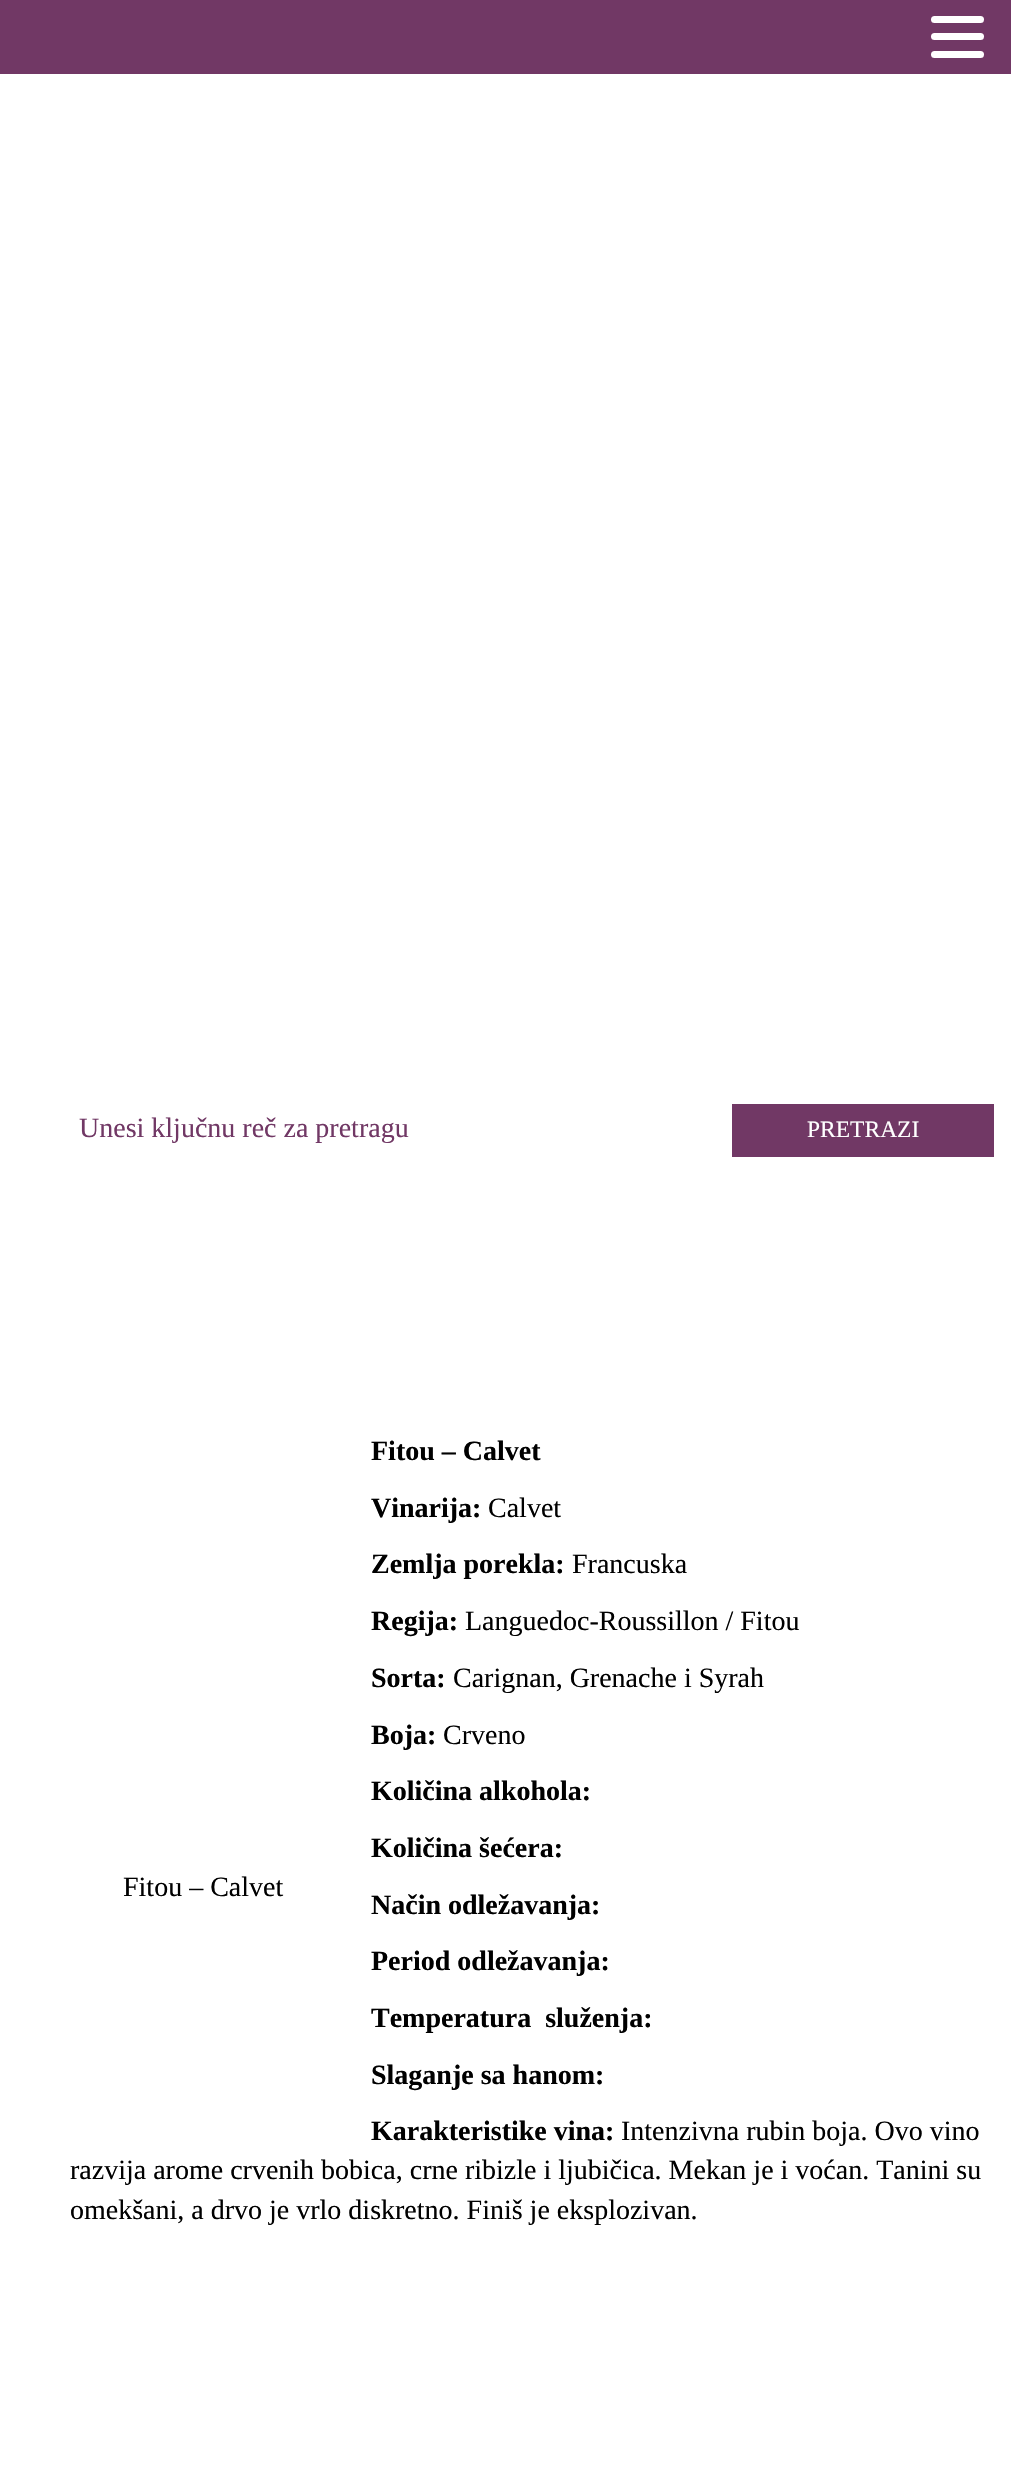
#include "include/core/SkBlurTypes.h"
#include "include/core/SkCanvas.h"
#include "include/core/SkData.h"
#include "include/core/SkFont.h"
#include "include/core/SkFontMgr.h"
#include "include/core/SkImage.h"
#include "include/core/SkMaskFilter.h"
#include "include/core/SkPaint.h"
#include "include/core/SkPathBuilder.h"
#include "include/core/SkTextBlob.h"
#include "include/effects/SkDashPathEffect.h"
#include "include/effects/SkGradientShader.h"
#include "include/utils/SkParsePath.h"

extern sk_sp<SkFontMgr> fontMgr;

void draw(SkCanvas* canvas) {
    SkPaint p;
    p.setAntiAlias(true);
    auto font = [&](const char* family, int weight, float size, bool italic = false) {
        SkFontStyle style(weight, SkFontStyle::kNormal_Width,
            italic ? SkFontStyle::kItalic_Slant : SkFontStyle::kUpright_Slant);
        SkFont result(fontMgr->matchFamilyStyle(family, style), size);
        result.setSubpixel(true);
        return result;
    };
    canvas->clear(0xFFFFFFFF);
    p.setColor(0xFF713865);
    canvas->drawRect(SkRect::MakeLTRB(0, 0, 1011, 74), p);
    p.setColor(0xFFFFFFFF);
    canvas->drawRoundRect(SkRect::MakeLTRB(931, 16, 984, 23), 3.5f, 3.5f, p);
    canvas->drawRoundRect(SkRect::MakeLTRB(931, 33, 984, 40), 3.5f, 3.5f, p);
    canvas->drawRoundRect(SkRect::MakeLTRB(931, 51, 984, 58), 3.5f, 3.5f, p);
    auto font1 = font("Liberation Serif", 400, 28);
    p.setColor(0xFF713865);
    canvas->drawString("Unesi ključnu reč za pretragu", 79, 1137, font1, p);
    canvas->drawRect(SkRect::MakeLTRB(732, 1104, 994, 1157), p);
    auto font2 = font("Liberation Serif", 400, 23.5f);
    p.setColor(0xFFFFFFFF);
    canvas->drawString("PRETRAZI", 807, 1137, font2, p);
    auto font3 = font("Liberation Serif", 700, 28);
    p.setColor(0xFF000000);
    canvas->drawString("Fitou – Calvet", 371, 1460, font3, p);
    canvas->drawString("Vinarija:", 371, 1517, font3, p);
    canvas->drawString("Calvet", 488, 1517, font1, p);
    canvas->drawString("Zemlja porekla:", 371, 1573, font3, p);
    canvas->drawString("Francuska", 572, 1573, font1, p);
    canvas->drawString("Regija:", 371, 1630, font3, p);
    canvas->drawString("Languedoc-Roussillon / Fitou", 465, 1630, font1, p);
    canvas->drawString("Sorta:", 371, 1687, font3, p);
    canvas->drawString("Carignan, Grenache i Syrah", 453, 1687, font1, p);
    canvas->drawString("Boja:", 371, 1744, font3, p);
    canvas->drawString("Crveno", 443, 1744, font1, p);
    {
        const struct { const char* s; float x, y; } items[] = {
            {"Količina alkohola:", 371, 1800},
            {"Količina šećera:", 371, 1857},
            {"Način odležavanja:", 371, 1914},
            {"Period odležavanja:", 371, 1970},
            {"Temperatura  služenja:", 371, 2027},
            {"Slaganje sa hanom:", 371, 2084},
            {"Karakteristike vina:", 371, 2140},
        };
        for (auto [s, x, y] : items) {
            canvas->drawString(s, x, y, font3, p);
        }
    }
    {
        const struct { const char* s; float x, y; } items[] = {
            {"Intenzivna rubin boja. Ovo vino", 621, 2140},
            {"razvija arome crvenih bobica, crne ribizle i ljubičica. Mekan je i voćan. Tanini su", 70, 2179},
            {"omekšani, a drvo je vrlo diskretno. Finiš je eksplozivan.", 70, 2219},
            {"Fitou – Calvet", 123, 1896},
        };
        for (auto [s, x, y] : items) {
            canvas->drawString(s, x, y, font1, p);
        }
    }
}
